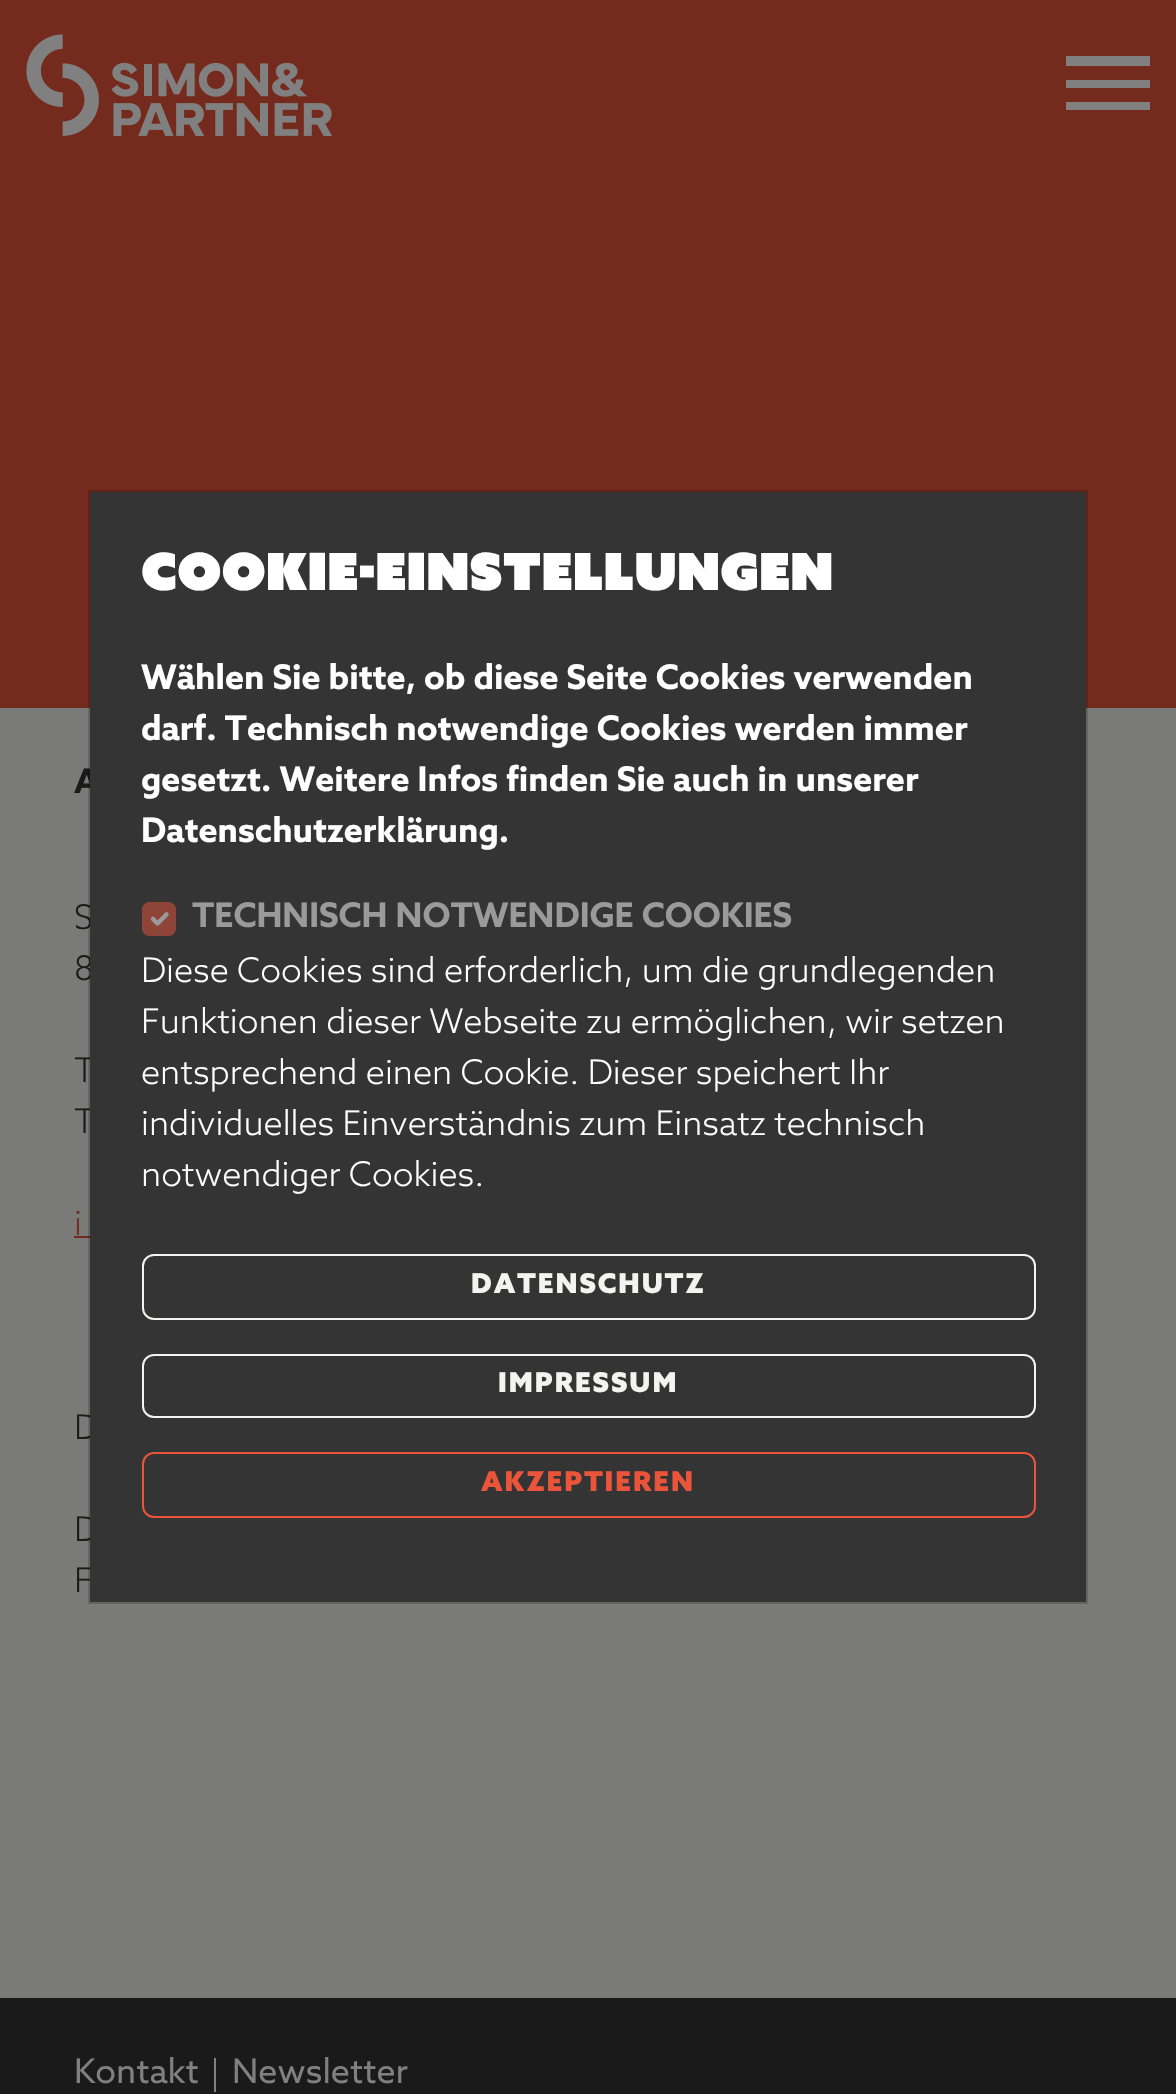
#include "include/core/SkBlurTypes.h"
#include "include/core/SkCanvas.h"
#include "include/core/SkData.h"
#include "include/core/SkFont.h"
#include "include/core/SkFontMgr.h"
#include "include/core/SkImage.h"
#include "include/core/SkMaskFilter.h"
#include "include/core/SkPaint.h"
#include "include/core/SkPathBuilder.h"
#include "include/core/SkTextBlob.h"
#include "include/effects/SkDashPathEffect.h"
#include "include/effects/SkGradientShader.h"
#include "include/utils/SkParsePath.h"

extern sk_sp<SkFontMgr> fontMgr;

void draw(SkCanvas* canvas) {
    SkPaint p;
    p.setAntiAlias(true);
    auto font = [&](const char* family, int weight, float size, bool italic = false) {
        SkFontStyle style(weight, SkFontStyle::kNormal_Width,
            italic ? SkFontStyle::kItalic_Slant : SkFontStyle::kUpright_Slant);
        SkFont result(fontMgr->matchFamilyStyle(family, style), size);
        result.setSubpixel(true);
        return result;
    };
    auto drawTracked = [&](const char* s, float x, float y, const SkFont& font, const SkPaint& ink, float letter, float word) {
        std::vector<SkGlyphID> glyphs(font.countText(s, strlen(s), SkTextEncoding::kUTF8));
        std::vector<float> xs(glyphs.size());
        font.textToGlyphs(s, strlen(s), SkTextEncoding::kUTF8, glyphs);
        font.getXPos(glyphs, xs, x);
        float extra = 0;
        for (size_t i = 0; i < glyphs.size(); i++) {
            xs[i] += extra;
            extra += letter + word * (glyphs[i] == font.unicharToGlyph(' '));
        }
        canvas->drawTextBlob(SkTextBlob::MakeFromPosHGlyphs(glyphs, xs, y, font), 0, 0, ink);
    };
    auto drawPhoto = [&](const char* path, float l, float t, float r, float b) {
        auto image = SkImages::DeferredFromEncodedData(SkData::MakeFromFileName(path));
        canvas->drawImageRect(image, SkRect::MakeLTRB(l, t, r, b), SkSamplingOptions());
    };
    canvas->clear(0xFF7A7A79);
    p.setColor(0xFF752A1E);
    canvas->drawRect(SkRect::MakeLTRB(0, 0, 1176, 708), p);
    drawPhoto("media/1.png", 26, 34, 332, 136);
    {
        const struct { float l, t, r, b; SkColor color; } items[] = {
            {1066, 56, 1150, 66, 0xFF808080},
            {1066, 80, 1150, 88, 0xFF808080},
            {1066, 102, 1150, 110, 0xFF808080},
        };
        for (auto [l, t, r, b, color] : items) {
            p.setColor(color);
            canvas->drawRect(SkRect::MakeLTRB(l, t, r, b), p);
        }
    }
    auto font1 = font("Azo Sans", 700, 34);
    p.setColor(0xFF1A1A1A);
    canvas->drawString("A", 74, 793, font1, p);
    auto font2 = font("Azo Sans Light", 300, 34);
    {
        const struct { const char* s; float x, y; } items[] = {
            {"S", 74, 929},
            {"8", 74, 980},
            {"T", 74, 1082},
            {"T", 74, 1133},
            {"D", 74, 1439},
            {"D", 74, 1541},
            {"F", 74, 1592},
        };
        for (auto [s, x, y] : items) {
            canvas->drawString(s, x, y, font2, p);
        }
    }
    p.setColor(0xFF343434);
    canvas->drawRect(SkRect::MakeLTRB(90, 492, 1086, 1602), p);
    p.setColor(0xFF752A1E);
    canvas->drawRect(SkRect::MakeLTRB(74, 1236, 90, 1238), p);
    p.setStyle(SkPaint::kStroke_Style);
    p.setStrokeWidth(2);
    p.setColor(0x2E000000);
    canvas->drawRect(SkRect::MakeLTRB(89, 491, 1087, 1603), p);
    auto font3 = font("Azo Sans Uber", 400, 51.25f);
    p.setStyle(SkPaint::kFill_Style);
    p.setColor(0xFFFFFFFF);
    canvas->drawString("COOKIE-EINSTELLUNGEN", 141, 590, font3, p);
    {
        const struct { const char* s; float x, y; } items[] = {
            {"Wählen Sie bitte, ob diese Seite Cookies verwenden", 141, 689},
            {"darf. Technisch notwendige Cookies werden immer", 141, 740},
            {"gesetzt. Weitere Infos finden Sie auch in unserer", 141, 791},
            {"Datenschutzerklärung.", 141, 842},
        };
        for (auto [s, x, y] : items) {
            canvas->drawString(s, x, y, font1, p);
        }
    }
    p.setColor(0xFF8F4438);
    canvas->drawRoundRect(SkRect::MakeLTRB(142, 902, 176, 936), 8, 8, p);
    p.setStyle(SkPaint::kStroke_Style);
    p.setStrokeWidth(4.5f);
    p.setStrokeCap(SkPaint::kRound_Cap);
    p.setStrokeJoin(SkPaint::kRound_Join);
    p.setColor(0xFF9A9A9A);
    canvas->drawPath(SkPathBuilder().moveTo(153, 919).lineTo(157.5f, 923.5f).lineTo(166.5f, 914.5f).detach(), p);
    p.setStrokeWidth(2);
    p.setStrokeCap(SkPaint::kButt_Cap);
    p.setStrokeJoin(SkPaint::kMiter_Join);
    p.setColor(0xFF8F4438);
    canvas->drawRoundRect(SkRect::MakeLTRB(143, 903, 175, 935), 7, 7, p);
    p.setStyle(SkPaint::kFill_Style);
    p.setColor(0xFF9A9A9A);
    canvas->drawString("TECHNISCH NOTWENDIGE COOKIES", 192, 927, font1, p);
    p.setColor(0xFFFFFFFF);
    {
        const struct { const char* s; float x, y; } items[] = {
            {"Diese Cookies sind erforderlich, um die grundlegenden", 141, 982},
            {"Funktionen dieser Webseite zu ermöglichen, wir setzen", 141, 1033},
            {"entsprechend einen Cookie. Dieser speichert Ihr", 141, 1084},
            {"individuelles Einverständnis zum Einsatz technisch", 141, 1135},
            {"notwendiger Cookies.", 141, 1186},
        };
        for (auto [s, x, y] : items) {
            canvas->drawString(s, x, y, font2, p);
        }
    }
    p.setStyle(SkPaint::kStroke_Style);
    p.setColor(0xFFF3F3F2);
    canvas->drawRoundRect(SkRect::MakeLTRB(143, 1255, 1035, 1319), 11, 11, p);
    auto font4 = font("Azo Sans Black", 900, 27.25f);
    p.setStyle(SkPaint::kFill_Style);
    drawTracked("DATENSCHUTZ", 471, 1293, font4, p, 2, 0);
    p.setStyle(SkPaint::kStroke_Style);
    canvas->drawRoundRect(SkRect::MakeLTRB(143, 1355, 1035, 1417), 11, 11, p);
    p.setStyle(SkPaint::kFill_Style);
    drawTracked("IMPRESSUM", 498, 1392, font4, p, 2, 0);
    p.setStyle(SkPaint::kStroke_Style);
    p.setColor(0xFFEA543B);
    canvas->drawRoundRect(SkRect::MakeLTRB(143, 1453, 1035, 1517), 11, 11, p);
    p.setStyle(SkPaint::kFill_Style);
    drawTracked("AKZEPTIEREN", 481, 1491, font4, p, 2, 0);
    p.setColor(0xFF752A1E);
    canvas->drawString("i", 74, 1235, font2, p);
    p.setColor(0xFF1A1A1A);
    canvas->drawRect(SkRect::MakeLTRB(0, 1998, 1176, 2094), p);
    auto font5 = font("Azo Sans", 400, 34);
    p.setColor(0xFF808080);
    canvas->drawString("Kontakt", 74, 2083, font5, p);
    canvas->drawRect(SkRect::MakeLTRB(214, 2058, 216, 2092), p);
    canvas->drawString("Newsletter", 232, 2083, font5, p);
}
